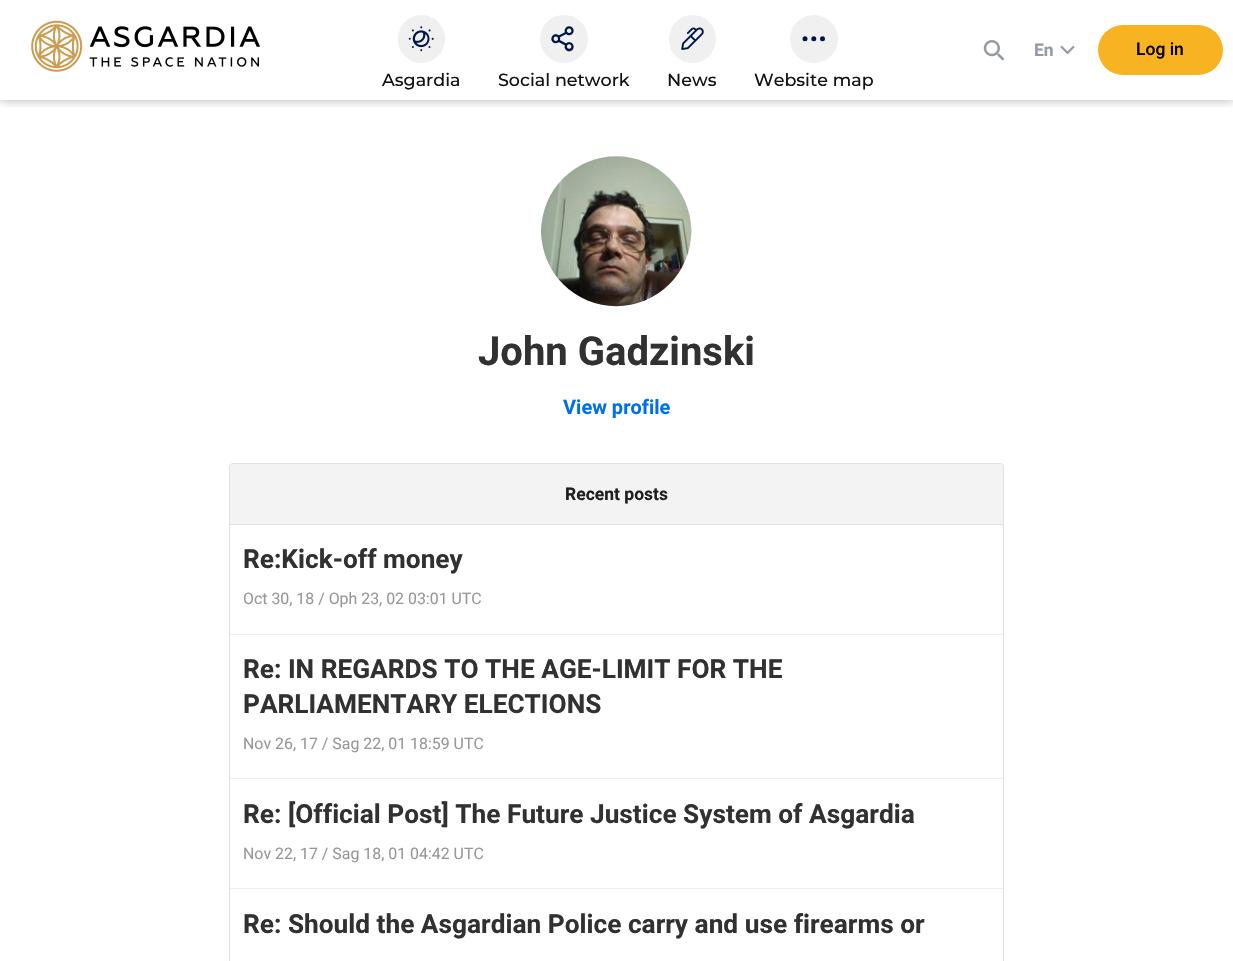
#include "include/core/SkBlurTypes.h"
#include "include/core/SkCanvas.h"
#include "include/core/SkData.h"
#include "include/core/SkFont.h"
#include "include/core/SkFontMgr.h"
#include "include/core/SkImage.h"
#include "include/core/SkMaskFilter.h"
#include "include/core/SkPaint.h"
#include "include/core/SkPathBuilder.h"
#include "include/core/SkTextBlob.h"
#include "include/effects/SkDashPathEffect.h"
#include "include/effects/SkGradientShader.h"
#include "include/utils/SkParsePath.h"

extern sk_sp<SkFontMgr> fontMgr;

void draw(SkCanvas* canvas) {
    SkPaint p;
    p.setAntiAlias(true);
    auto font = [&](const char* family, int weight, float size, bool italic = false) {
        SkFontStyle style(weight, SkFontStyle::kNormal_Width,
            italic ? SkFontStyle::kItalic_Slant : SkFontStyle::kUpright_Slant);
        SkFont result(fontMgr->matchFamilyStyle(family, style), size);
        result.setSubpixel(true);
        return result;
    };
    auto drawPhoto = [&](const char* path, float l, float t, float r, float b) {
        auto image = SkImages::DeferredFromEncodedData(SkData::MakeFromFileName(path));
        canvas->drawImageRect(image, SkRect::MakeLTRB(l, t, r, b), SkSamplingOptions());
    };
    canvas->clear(0xFFFFFFFF);
    canvas->save();
    canvas->clipRect(SkRect::MakeLTRB(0, 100, 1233, 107));
    p.setColor(0x4D000000);
    p.setMaskFilter(SkMaskFilter::MakeBlur(kNormal_SkBlurStyle, 5));
    canvas->drawRect(SkRect::MakeLTRB(0, 0, 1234, 100), p);
    p.setMaskFilter(nullptr);
    canvas->restore();
    drawPhoto("media/1.png", 31, 20, 260, 72);
    drawPhoto("media/2.png", 983, 40, 1005, 61);
    auto font1 = font("Roboto", 700, 17.5f);
    p.setColor(0xFF959BA5);
    canvas->drawString("En", 1034, 56, font1, p);
    drawPhoto("media/3.png", 1060, 45, 1075, 55);
    p.setColor(0xFFF7B322);
    canvas->drawRoundRect(SkRect::MakeLTRB(1098, 25, 1223, 75), 25, 25, p);
    auto font2 = font("Roboto", 500, 17.5f);
    p.setColor(0xFF000000);
    canvas->drawString("Log in", 1136, 55, font2, p);
    p.setColor(0xFFF0F0F0);
    canvas->drawRoundRect(SkRect::MakeLTRB(398, 15, 445, 63), 23.5f, 23.5f, p);
    drawPhoto("media/4.png", 408, 26, 434, 52);
    auto font3 = font("Montserrat", 500, 17.5f);
    p.setColor(0xFF121212);
    canvas->drawString("Asgardia", 382, 86, font3, p);
    p.setColor(0xFFF0F0F0);
    canvas->drawCircle(564, 39, 24, p);
    drawPhoto("media/5.png", 551, 26, 574, 52);
    p.setColor(0xFF121212);
    canvas->drawString("Social network", 498, 86, font3, p);
    p.setColor(0xFFF0F0F0);
    canvas->drawRoundRect(SkRect::MakeLTRB(669, 15, 716, 63), 23.5f, 23.5f, p);
    drawPhoto("media/6.png", 681, 27, 704, 50);
    p.setColor(0xFF121212);
    canvas->drawString("News", 667, 86, font3, p);
    p.setColor(0xFFF0F0F0);
    canvas->drawCircle(814, 39, 24, p);
    p.setColor(0xFF001645);
    canvas->drawCircle(805, 38.8f, 2.5f, p);
    canvas->drawCircle(813.8f, 38.8f, 2.5f, p);
    canvas->drawCircle(822.5f, 38.8f, 2.5f, p);
    p.setColor(0xFF121212);
    canvas->drawString("Website map", 754, 86, font3, p);
    drawPhoto("media/7.png", 541, 156, 692, 307);
    auto font4 = font("Roboto", 700, 40);
    p.setColor(0xFF313131);
    canvas->drawString("John Gadzinski", 478, 365, font4, p);
    auto font5 = font("Roboto", 700, 20);
    p.setColor(0xFF0070E9);
    canvas->drawString("View profile", 563, 414, font5, p);
    p.setStyle(SkPaint::kStroke_Style);
    p.setStrokeWidth(1);
    p.setColor(0xFFE0E0E0);
    canvas->drawRoundRect(SkRect::MakeLTRB(229.5f, 463.5f, 1003.5f, 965.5f), 3.5f, 3.5f, p);
    p.setStyle(SkPaint::kFill_Style);
    p.setColor(0xFFF3F3F3);
    canvas->drawPath(SkPathBuilder().moveTo(234, 464).lineTo(999, 464).cubicTo(1001, 464, 1003, 466, 1003, 468).lineTo(1003, 525).lineTo(230, 525).lineTo(230, 468).cubicTo(230, 466, 232, 464, 234, 464).close().detach(), p);
    p.setColor(0xFFDDDDDD);
    canvas->drawRect(SkRect::MakeLTRB(230, 524, 1003, 525), p);
    p.setColor(0xFF202020);
    canvas->drawString("Recent posts", 565, 500, font1, p);
    p.setColor(0xFFEEEEEE);
    canvas->drawRect(SkRect::MakeLTRB(230, 634, 1003, 635), p);
    auto font6 = font("Roboto", 700, 26.25f);
    p.setColor(0xFF313131);
    canvas->drawString("Re:Kick-off money", 243, 568, font6, p);
    auto font7 = font("Roboto", 400, 15.9f);
    p.setColor(0xFF979797);
    canvas->drawString("Oct 30, 18 / Oph 23, 02 03:01 UTC", 243, 604, font7, p);
    p.setColor(0xFFEEEEEE);
    canvas->drawRect(SkRect::MakeLTRB(230, 778, 1003, 779), p);
    p.setColor(0xFF313131);
    canvas->drawString("Re: IN REGARDS TO THE AGE-LIMIT FOR THE", 243, 678, font6, p);
    canvas->drawString("PARLIAMENTARY ELECTIONS", 243, 713, font6, p);
    p.setColor(0xFF979797);
    canvas->drawString("Nov 26, 17 / Sag 22, 01 18:59 UTC", 243, 749, font7, p);
    p.setColor(0xFFEEEEEE);
    canvas->drawRect(SkRect::MakeLTRB(230, 888, 1003, 889), p);
    p.setColor(0xFF313131);
    canvas->drawString("Re: [Official Post] The Future Justice System of Asgardia", 243, 823, font6, p);
    p.setColor(0xFF979797);
    canvas->drawString("Nov 22, 17 / Sag 18, 01 04:42 UTC", 243, 859, font7, p);
    p.setColor(0xFF313131);
    canvas->drawString("Re: Should the Asgardian Police carry and use firearms or", 243, 933, font6, p);
}
